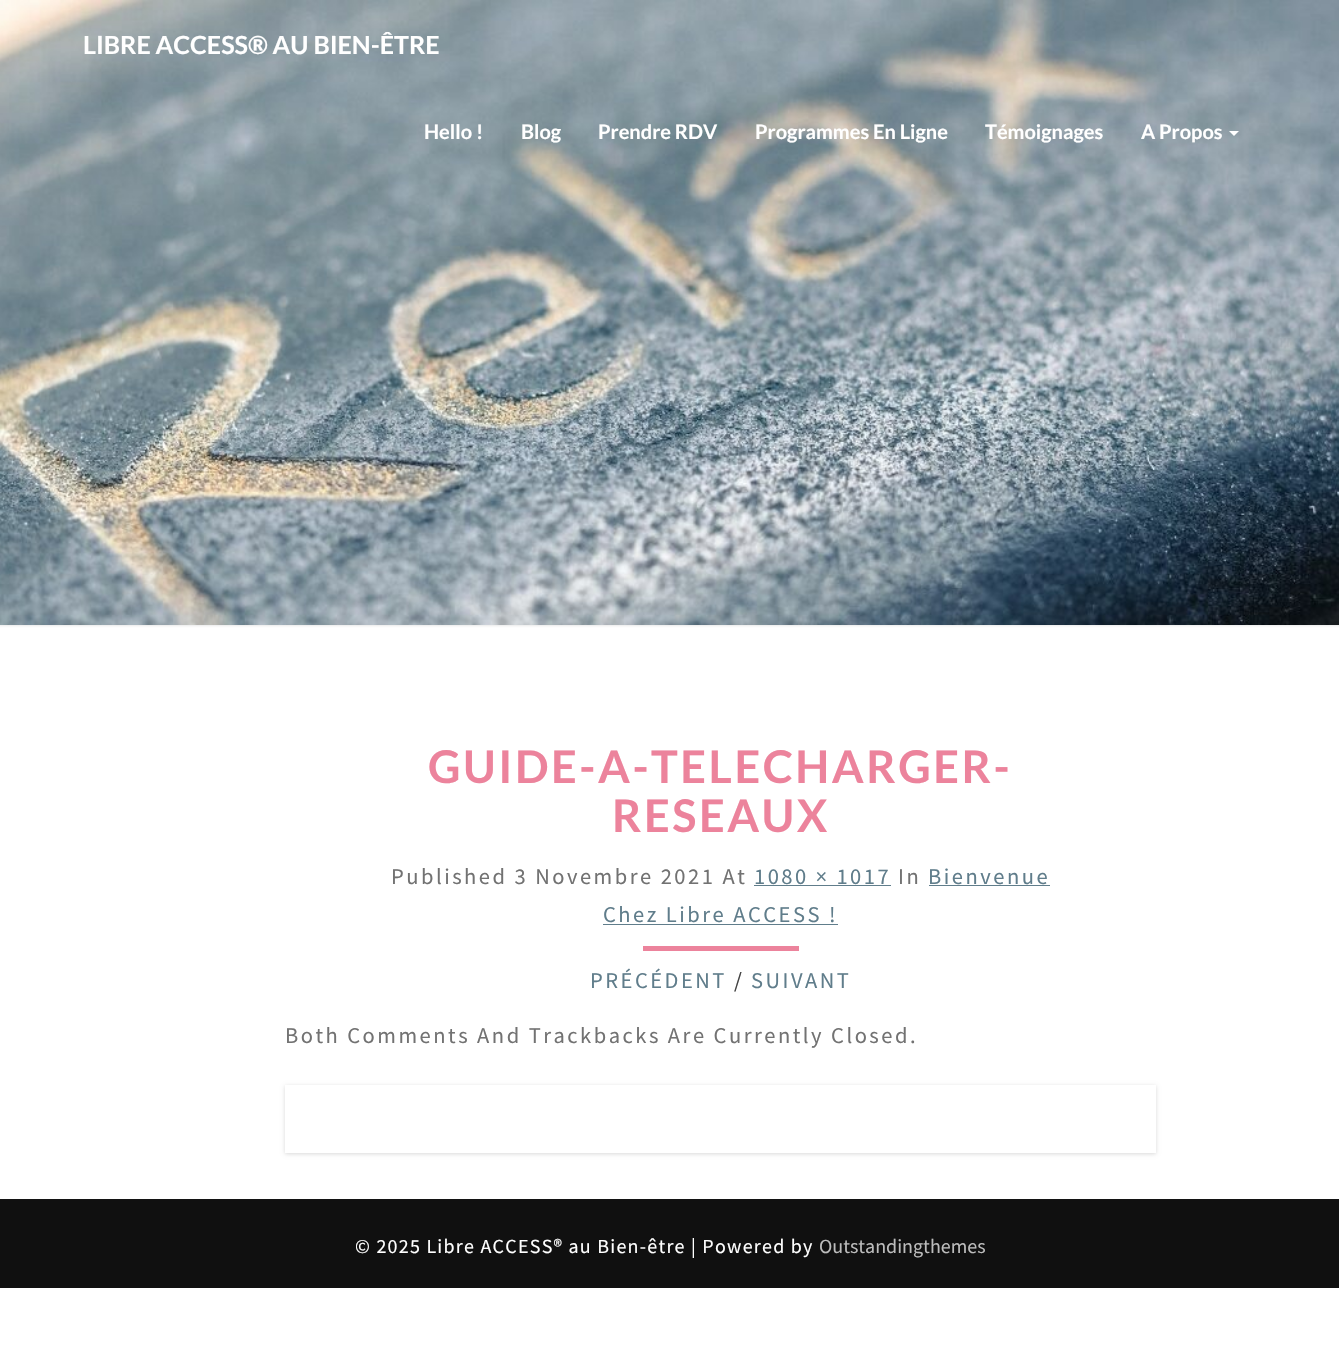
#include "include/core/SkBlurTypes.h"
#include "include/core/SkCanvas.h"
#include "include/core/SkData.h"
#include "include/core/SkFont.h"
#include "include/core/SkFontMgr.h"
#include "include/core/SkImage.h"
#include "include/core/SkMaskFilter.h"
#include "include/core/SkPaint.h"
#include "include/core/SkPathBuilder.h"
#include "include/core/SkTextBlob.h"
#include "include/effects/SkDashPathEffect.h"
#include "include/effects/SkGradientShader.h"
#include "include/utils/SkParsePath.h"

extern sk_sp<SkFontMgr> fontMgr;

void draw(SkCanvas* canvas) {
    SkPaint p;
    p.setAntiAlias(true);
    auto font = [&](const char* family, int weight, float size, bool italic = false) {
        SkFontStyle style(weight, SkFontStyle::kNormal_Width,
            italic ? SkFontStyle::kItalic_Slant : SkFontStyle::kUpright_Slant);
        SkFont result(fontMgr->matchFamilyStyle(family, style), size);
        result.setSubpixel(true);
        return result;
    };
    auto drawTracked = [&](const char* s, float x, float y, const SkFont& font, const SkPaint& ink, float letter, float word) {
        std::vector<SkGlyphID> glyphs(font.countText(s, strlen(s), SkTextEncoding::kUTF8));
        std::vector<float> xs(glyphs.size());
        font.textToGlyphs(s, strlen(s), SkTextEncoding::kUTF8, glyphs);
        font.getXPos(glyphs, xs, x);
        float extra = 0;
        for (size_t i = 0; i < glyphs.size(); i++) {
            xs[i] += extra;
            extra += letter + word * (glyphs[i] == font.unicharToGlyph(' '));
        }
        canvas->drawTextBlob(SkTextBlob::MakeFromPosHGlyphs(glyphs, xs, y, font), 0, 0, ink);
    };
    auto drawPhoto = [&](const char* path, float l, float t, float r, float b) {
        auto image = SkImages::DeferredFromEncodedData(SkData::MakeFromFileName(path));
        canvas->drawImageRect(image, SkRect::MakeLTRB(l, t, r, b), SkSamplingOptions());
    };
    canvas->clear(0xFFFFFFFF);
    p.setColor(0x4DB6B6B6);
    p.setMaskFilter(SkMaskFilter::MakeBlur(kNormal_SkBlurStyle, 1));
    canvas->drawRect(SkRect::MakeLTRB(-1, -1, 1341, 626), p);
    p.setMaskFilter(nullptr);
    drawPhoto("media/1.png", 0, 0, 1339, 625);
    auto font1 = font("Lato", 700, 25);
    p.setColor(0xFFFFFFFF);
    canvas->drawString("LIBRE ACCESS® AU BIEN-ÊTRE", 83, 54, font1, p);
    auto font2 = font("Lato", 700, 20);
    {
        const struct { const char* s; float x, y; } items[] = {
            {"Hello !", 424, 139},
            {"Blog", 521, 139},
            {"Prendre RDV", 598, 139},
            {"Programmes En Ligne", 755, 139},
            {"Témoignages", 985, 139},
            {"A Propos", 1141, 139},
        };
        for (auto [s, x, y] : items) {
            canvas->drawString(s, x, y, font2, p);
        }
    }
    canvas->drawPath(SkPathBuilder().moveTo(1229, 131).lineTo(1239, 131).lineTo(1234, 136).close().detach(), p);
    auto font3 = font("Lato", 700, 45);
    p.setColor(0xFFEC839C);
    drawTracked("GUIDE-A-TELECHARGER-", 428, 783, font3, p, 2.5f, 0);
    drawTracked("RESEAUX", 612, 832, font3, p, 2.5f, 0);
    auto font4 = font("Source Sans Pro", 400, 22.5f);
    p.setColor(0xFF727272);
    drawTracked("Published 3 Novembre 2021 At", 391, 884, font4, p, 2.5f, 0);
    p.setColor(0xFF607D8B);
    drawTracked("1080 × 1017", 754, 884, font4, p, 2.5f, 0);
    canvas->drawRect(SkRect::MakeLTRB(754, 885, 891, 886), p);
    p.setColor(0xFF727272);
    drawTracked("In", 898, 884, font4, p, 2.5f, 0);
    p.setColor(0xFF607D8B);
    drawTracked("Bienvenue", 928, 884, font4, p, 2.5f, 0);
    canvas->drawRect(SkRect::MakeLTRB(929, 885, 1050, 886), p);
    drawTracked("Chez Libre ACCESS !", 603, 922, font4, p, 2.5f, 0);
    canvas->drawRect(SkRect::MakeLTRB(603, 924, 838, 925), p);
    p.setColor(0xFFEC839C);
    canvas->drawRect(SkRect::MakeLTRB(643, 946, 799, 951), p);
    p.setColor(0xFF607D8B);
    drawTracked("PRÉCÉDENT", 590, 988, font4, p, 2.5f, 0);
    p.setColor(0xFF424242);
    drawTracked("/", 734, 988, font4, p, 2.5f, 0);
    p.setColor(0xFF607D8B);
    drawTracked("SUIVANT", 751, 988, font4, p, 2.5f, 0);
    p.setColor(0xFF727272);
    drawTracked("Both Comments And Trackbacks Are Currently Closed.", 285, 1043, font4, p, 2.5f, 0);
    p.setColor(0x26000000);
    p.setMaskFilter(SkMaskFilter::MakeBlur(kNormal_SkBlurStyle, 2));
    canvas->drawRect(SkRect::MakeLTRB(285, 1086, 1156, 1154), p);
    p.setMaskFilter(nullptr);
    {
        const struct { float l, t, r, b; SkColor color; } items[] = {
            {285, 1085, 1156, 1153, 0xFFFFFFFF},
            {0, 1199, 1339, 1200, 0xFF131313},
            {0, 1200, 1339, 1288, 0xFF101010},
        };
        for (auto [l, t, r, b, color] : items) {
            p.setColor(color);
            canvas->drawRect(SkRect::MakeLTRB(l, t, r, b), p);
        }
    }
    auto font5 = font("Source Sans Pro", 400, 20);
    p.setColor(0xFFFFFFFF);
    drawTracked("© 2025 Libre ACCESS® au Bien-être | Powered by", 355, 1253, font5, p, 1.25f, 0);
    p.setColor(0xFFBCBCBC);
    canvas->drawString("Outstandingthemes", 819, 1253, font5, p);
}
